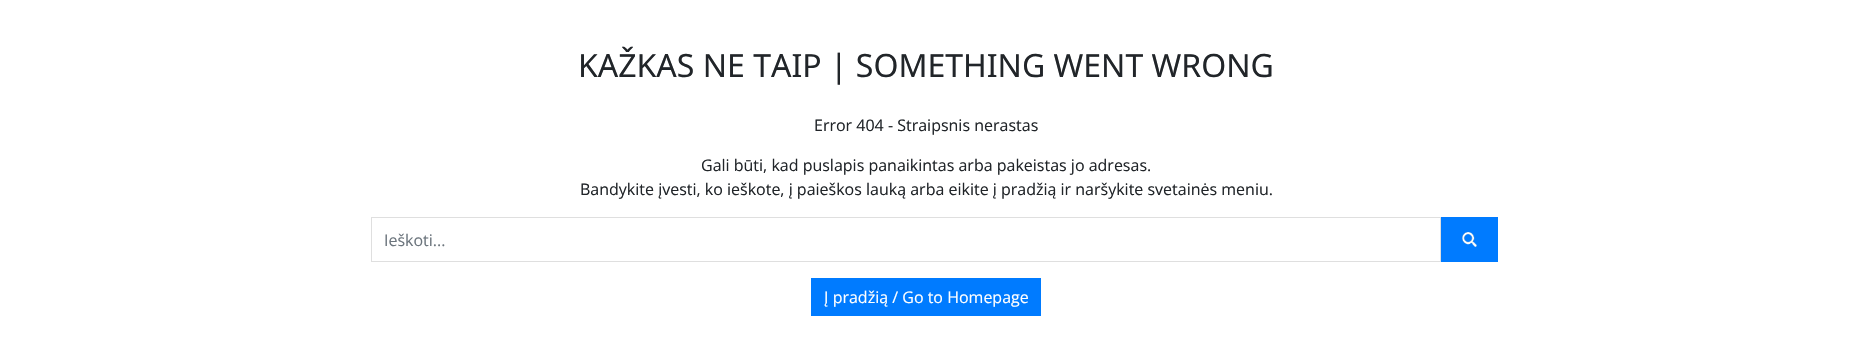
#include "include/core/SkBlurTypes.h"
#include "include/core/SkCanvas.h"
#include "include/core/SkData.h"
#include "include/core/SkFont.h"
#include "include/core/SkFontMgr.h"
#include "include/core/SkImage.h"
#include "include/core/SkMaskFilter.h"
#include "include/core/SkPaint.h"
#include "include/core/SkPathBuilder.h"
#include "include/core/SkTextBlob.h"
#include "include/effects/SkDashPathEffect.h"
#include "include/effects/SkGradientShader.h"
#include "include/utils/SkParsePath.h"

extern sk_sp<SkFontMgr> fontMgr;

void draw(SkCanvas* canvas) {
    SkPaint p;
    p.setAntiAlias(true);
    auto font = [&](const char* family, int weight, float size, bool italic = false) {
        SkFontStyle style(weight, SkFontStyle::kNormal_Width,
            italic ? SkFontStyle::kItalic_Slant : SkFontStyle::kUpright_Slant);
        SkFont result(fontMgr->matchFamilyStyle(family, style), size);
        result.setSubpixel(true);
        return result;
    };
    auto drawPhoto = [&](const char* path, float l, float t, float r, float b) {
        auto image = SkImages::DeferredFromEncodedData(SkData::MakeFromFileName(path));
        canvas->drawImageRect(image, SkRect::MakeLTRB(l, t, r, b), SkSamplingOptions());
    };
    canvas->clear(0xFFFFFFFF);
    auto font1 = font("Noto Sans", 400, 32);
    p.setColor(0xFF212529);
    canvas->drawString("KAŽKAS NE TAIP | SOMETHING WENT WRONG", 578, 77, font1, p);
    auto font2 = font("Open Sans", 400, 16);
    {
        const struct { const char* s; float x, y; } items[] = {
            {"Error 404 - Straipsnis nerastas", 814, 131},
            {"Gali būti, kad puslapis panaikintas arba pakeistas jo adresas.", 701, 171},
            {"Bandykite įvesti, ko ieškote, į paieškos lauką arba eikite į pradžią ir naršykite svetainės meniu.", 580, 195},
        };
        for (auto [s, x, y] : items) {
            canvas->drawString(s, x, y, font2, p);
        }
    }
    p.setStyle(SkPaint::kStroke_Style);
    p.setStrokeWidth(1);
    p.setColor(0xFFDFDFDF);
    canvas->drawRect(SkRect::MakeLTRB(371.5f, 217.5f, 1440.5f, 261.5f), p);
    p.setStyle(SkPaint::kFill_Style);
    p.setColor(0xFF6C757D);
    canvas->drawString("Ieškoti...", 384, 246, font2, p);
    p.setColor(0xFF007BFF);
    canvas->drawRect(SkRect::MakeLTRB(1441, 217, 1498, 262), p);
    drawPhoto("media/1.png", 1462, 232, 1477, 247);
    canvas->drawRect(SkRect::MakeLTRB(811, 278, 1041, 316), p);
    p.setColor(0xFFFFFFFF);
    canvas->drawString("Į pradžią / Go to Homepage", 824, 303, font2, p);
}
